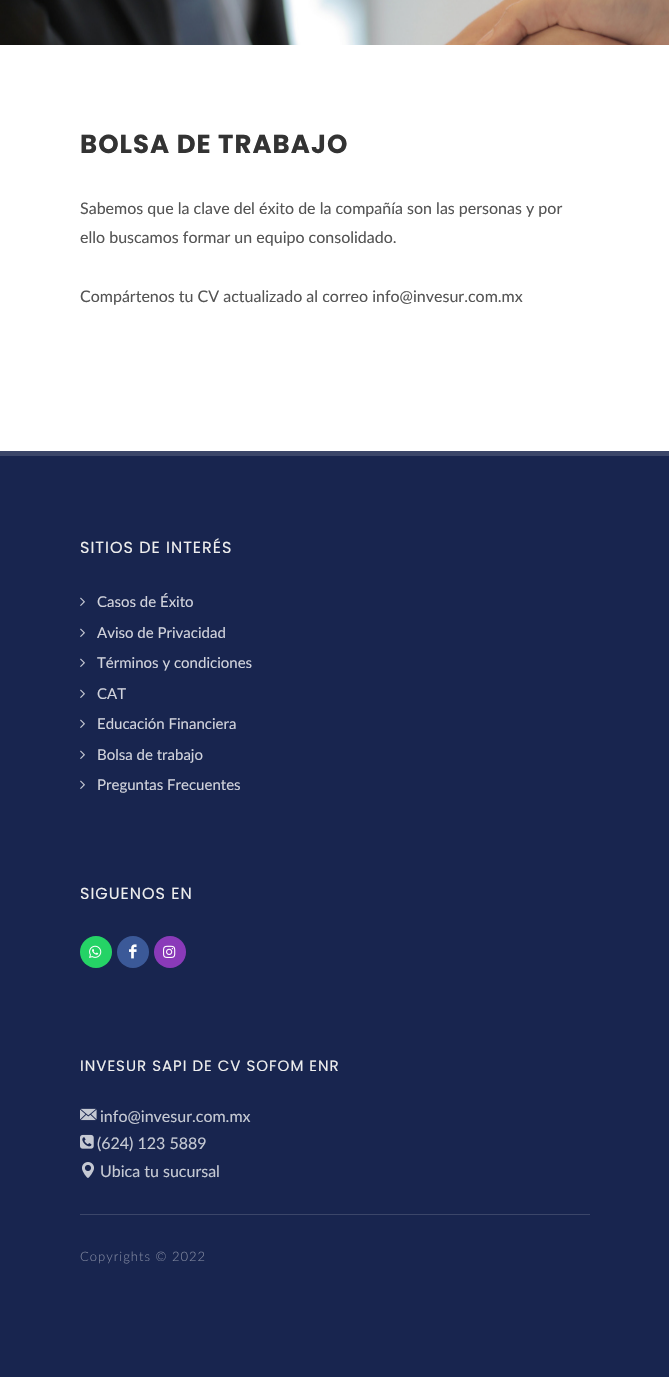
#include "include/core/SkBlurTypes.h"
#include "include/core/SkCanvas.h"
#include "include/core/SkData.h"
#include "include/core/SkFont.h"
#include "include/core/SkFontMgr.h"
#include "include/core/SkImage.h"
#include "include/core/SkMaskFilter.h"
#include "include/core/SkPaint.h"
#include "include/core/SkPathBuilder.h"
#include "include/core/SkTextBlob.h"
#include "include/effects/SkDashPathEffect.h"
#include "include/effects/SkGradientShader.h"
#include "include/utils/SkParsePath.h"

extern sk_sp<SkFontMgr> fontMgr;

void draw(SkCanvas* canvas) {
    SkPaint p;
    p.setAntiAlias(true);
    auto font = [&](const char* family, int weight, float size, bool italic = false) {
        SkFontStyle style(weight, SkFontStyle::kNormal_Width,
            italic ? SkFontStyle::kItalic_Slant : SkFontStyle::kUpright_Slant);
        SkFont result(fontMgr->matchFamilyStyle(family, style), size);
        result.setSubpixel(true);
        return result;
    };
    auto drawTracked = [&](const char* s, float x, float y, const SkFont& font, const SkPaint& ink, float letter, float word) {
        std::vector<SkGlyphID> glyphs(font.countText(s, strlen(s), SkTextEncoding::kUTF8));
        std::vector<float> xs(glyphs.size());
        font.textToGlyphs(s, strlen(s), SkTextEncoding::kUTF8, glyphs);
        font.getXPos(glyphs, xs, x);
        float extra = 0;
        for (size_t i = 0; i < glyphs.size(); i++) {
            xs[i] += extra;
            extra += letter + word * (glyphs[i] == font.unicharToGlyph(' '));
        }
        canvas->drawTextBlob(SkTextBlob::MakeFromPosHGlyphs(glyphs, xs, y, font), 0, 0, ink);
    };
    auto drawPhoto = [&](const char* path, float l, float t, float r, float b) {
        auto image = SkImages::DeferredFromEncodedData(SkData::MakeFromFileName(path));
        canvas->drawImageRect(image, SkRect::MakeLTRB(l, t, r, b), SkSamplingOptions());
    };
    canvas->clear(0xFFFFFFFF);
    drawPhoto("media/1.png", 0, 0, 669, 45);
    auto font1 = font("Poppins", 700, 26);
    p.setColor(0xFF333333);
    drawTracked("BOLSA DE TRABAJO", 80, 153, font1, p, 1, 0);
    auto font2 = font("Lato", 400, 16);
    p.setColor(0xFF555555);
    {
        const struct { const char* s; float x, y; } items[] = {
            {"Sabemos que la clave del éxito de la compañía son las personas y por", 80, 214},
            {"ello buscamos formar un equipo consolidado.", 80, 243},
            {"Compártenos tu CV actualizado al correo info@invesur.com.mx", 80, 302},
        };
        for (auto [s, x, y] : items) {
            canvas->drawString(s, x, y, font2, p);
        }
    }
    p.setColor(0xFF18254F);
    canvas->drawRect(SkRect::MakeLTRB(0, 456, 669, 1377), p);
    p.setColor(0xFF3B4669);
    canvas->drawRect(SkRect::MakeLTRB(0, 451, 669, 456), p);
    auto font3 = font("Poppins", 400, 16);
    p.setColor(0xFFEEEEEE);
    drawTracked("SITIOS DE INTERÉS", 80, 553, font3, p, 1, 0);
    drawPhoto("media/2.png", 80, 597, 85, 606);
    auto font4 = font("Lato", 400, 15);
    p.setColor(0xFFD1D3DC);
    canvas->drawString("Casos de Éxito", 97, 607, font4, p);
    drawPhoto("media/2.png", 80, 628, 85, 637);
    canvas->drawString("Aviso de Privacidad", 97, 638, font4, p);
    drawPhoto("media/2.png", 80, 658, 85, 667);
    canvas->drawString("Términos y condiciones", 97, 668, font4, p);
    drawPhoto("media/2.png", 80, 689, 85, 698);
    canvas->drawString("CAT", 97, 699, font4, p);
    drawPhoto("media/2.png", 80, 719, 85, 728);
    canvas->drawString("Educación Financiera", 97, 729, font4, p);
    drawPhoto("media/2.png", 80, 750, 85, 759);
    canvas->drawString("Bolsa de trabajo", 97, 760, font4, p);
    drawPhoto("media/2.png", 80, 780, 85, 789);
    canvas->drawString("Preguntas Frecuentes", 97, 790, font4, p);
    p.setColor(0xFFEEEEEE);
    drawTracked("SIGUENOS EN", 80, 899, font3, p, 1, 0);
    p.setColor(0xFF25D366);
    canvas->drawCircle(96, 952, 16, p);
    drawPhoto("media/3.png", 89, 945, 102, 958);
    p.setColor(0xFF3B5998);
    canvas->drawCircle(133, 952, 16, p);
    drawPhoto("media/4.png", 129, 944, 137, 959);
    p.setColor(0xFF8A3AB9);
    canvas->drawCircle(170, 952, 16, p);
    drawPhoto("media/5.png", 163, 945, 176, 958);
    auto font5 = font("Poppins", 400, 15);
    p.setColor(0xFFEEEEEE);
    drawTracked("INVESUR SAPI DE CV SOFOM ENR", 80, 1071, font5, p, 1, 0);
    drawPhoto("media/6.png", 80, 1108, 97, 1121);
    p.setColor(0xFFC5C9D3);
    canvas->drawString("info@invesur.com.mx", 100, 1122, font2, p);
    drawPhoto("media/7.png", 80, 1134, 94, 1149);
    canvas->drawString("(624) 123 5889", 97, 1149, font2, p);
    drawPhoto("media/8.png", 82, 1162, 94, 1178);
    canvas->drawString("Ubica tu sucursal", 100, 1177, font2, p);
    p.setColor(0xFF3B4669);
    canvas->drawRect(SkRect::MakeLTRB(80, 1214, 590, 1215), p);
    auto font6 = font("Lato", 300, 13);
    p.setColor(0xFF80879F);
    drawTracked("Copyrights © 2022", 80, 1261, font6, p, 1, 0);
}
